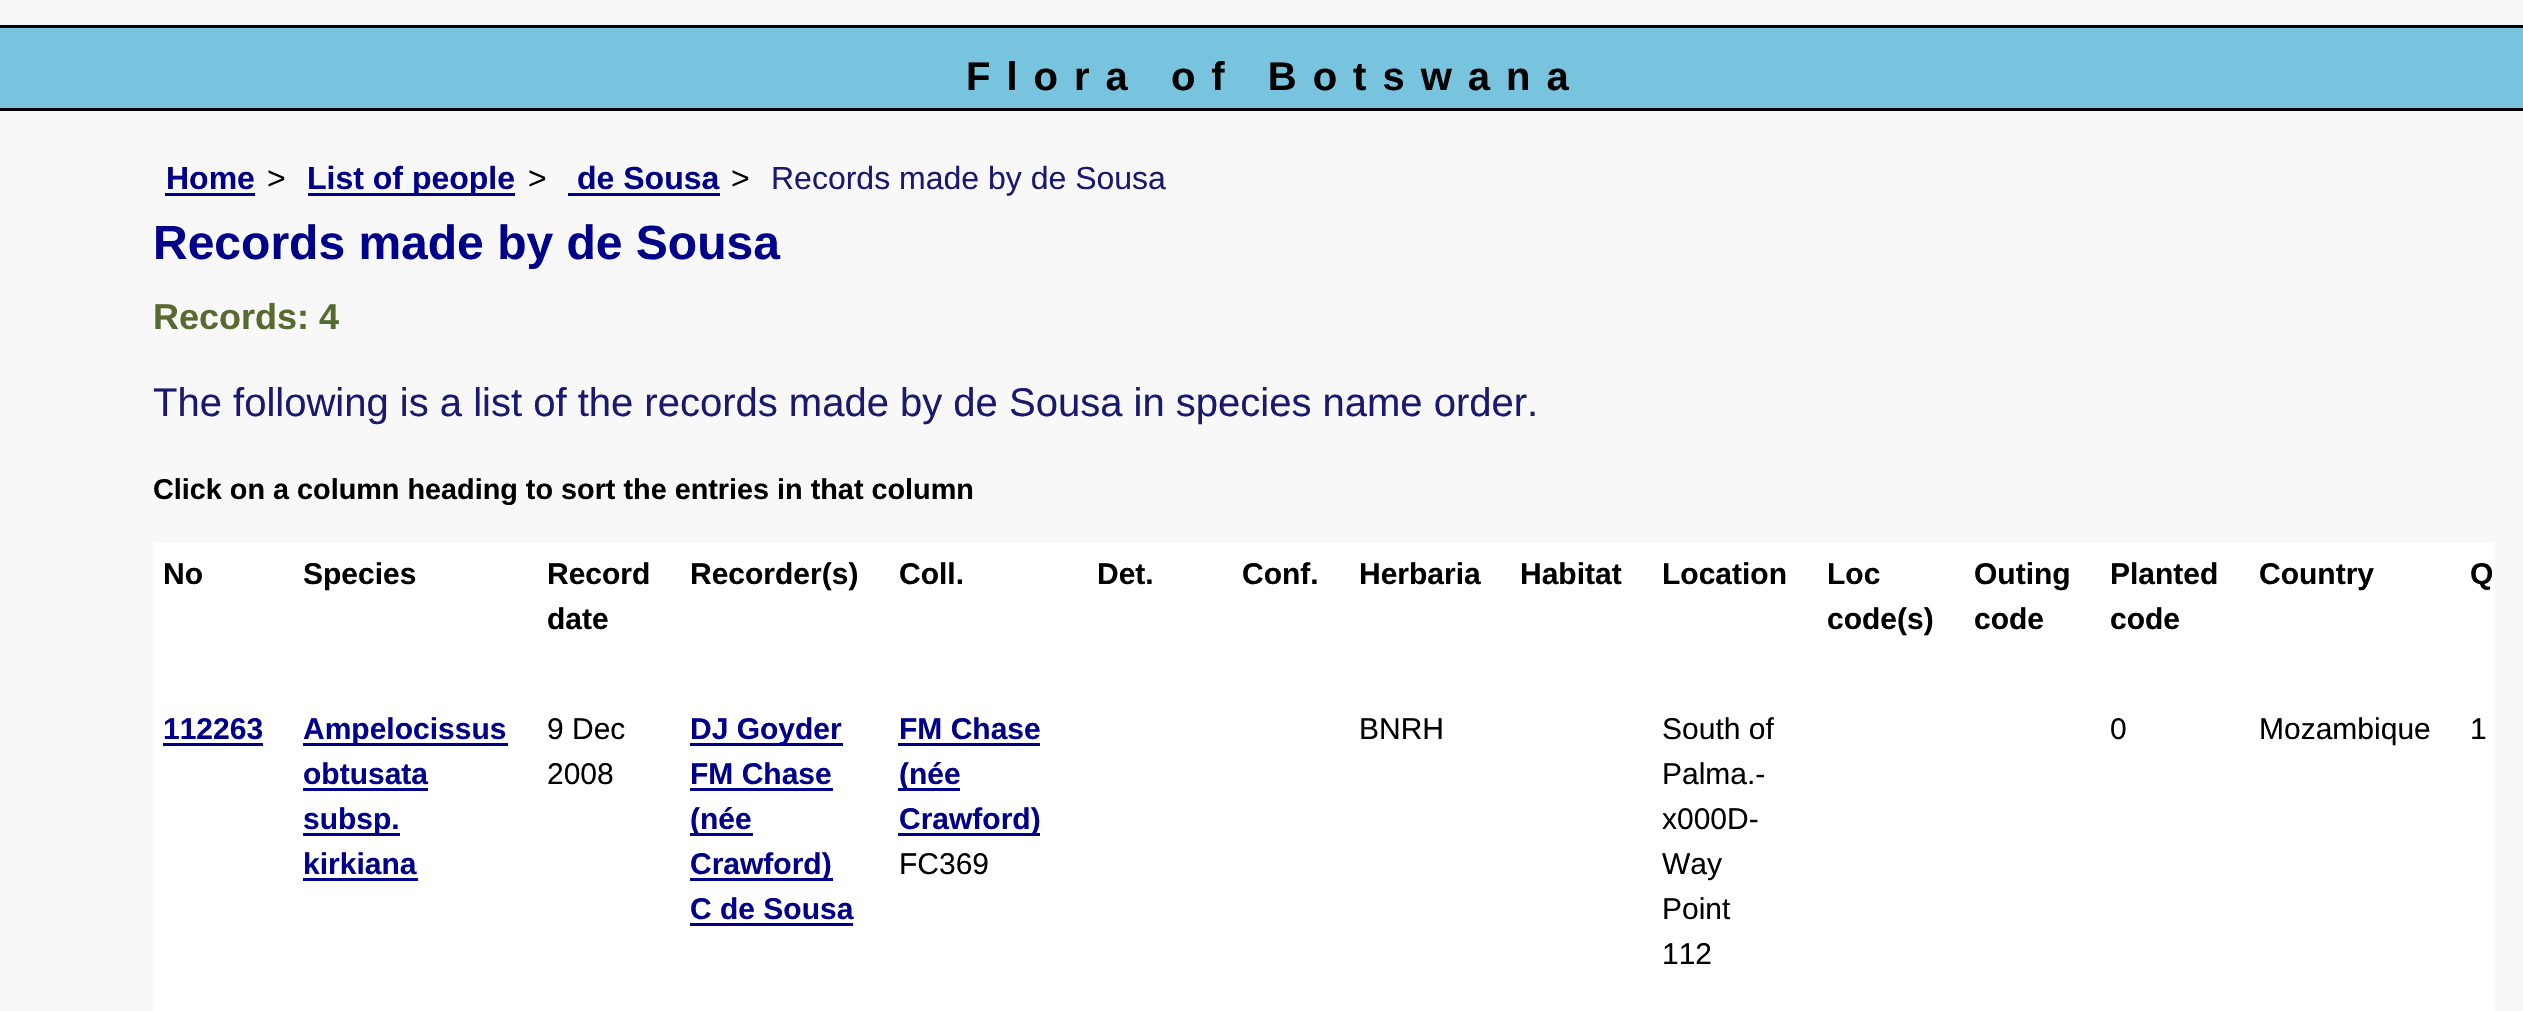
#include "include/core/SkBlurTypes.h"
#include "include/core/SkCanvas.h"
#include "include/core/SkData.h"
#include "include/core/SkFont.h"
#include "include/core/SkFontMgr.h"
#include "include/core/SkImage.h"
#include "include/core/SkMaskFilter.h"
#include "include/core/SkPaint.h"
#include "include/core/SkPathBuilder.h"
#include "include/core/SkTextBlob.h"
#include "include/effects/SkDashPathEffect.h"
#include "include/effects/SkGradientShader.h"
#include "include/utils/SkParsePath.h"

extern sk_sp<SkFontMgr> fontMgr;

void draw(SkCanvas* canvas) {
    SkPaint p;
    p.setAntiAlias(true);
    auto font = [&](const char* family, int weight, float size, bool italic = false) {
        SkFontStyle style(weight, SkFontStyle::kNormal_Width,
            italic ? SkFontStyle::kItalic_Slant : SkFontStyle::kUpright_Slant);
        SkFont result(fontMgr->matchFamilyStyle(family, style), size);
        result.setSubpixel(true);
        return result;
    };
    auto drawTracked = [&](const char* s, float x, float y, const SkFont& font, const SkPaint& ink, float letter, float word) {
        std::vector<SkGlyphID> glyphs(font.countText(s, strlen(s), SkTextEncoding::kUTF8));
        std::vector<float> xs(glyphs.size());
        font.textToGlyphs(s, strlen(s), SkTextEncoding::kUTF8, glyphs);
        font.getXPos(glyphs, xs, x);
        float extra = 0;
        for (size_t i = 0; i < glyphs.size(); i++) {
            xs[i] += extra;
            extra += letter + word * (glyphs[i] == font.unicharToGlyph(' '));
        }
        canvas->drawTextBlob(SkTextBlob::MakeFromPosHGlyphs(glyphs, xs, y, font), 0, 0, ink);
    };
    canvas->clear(0xFFF8F8F8);
    {
        const struct { float l, t, r, b; SkColor color; } items[] = {
            {0, 28, 2523, 108, 0xFF78C4DE},
            {0, 25, 2523, 28, 0xFF000000},
            {0, 108, 2523, 111, 0xFF000000},
        };
        for (auto [l, t, r, b, color] : items) {
            p.setColor(color);
            canvas->drawRect(SkRect::MakeLTRB(l, t, r, b), p);
        }
    }
    auto font1 = font("Liberation Sans", 700, 40);
    drawTracked("Flora of Botswana", 966, 90, font1, p, 16, 0);
    auto font2 = font("Liberation Sans", 700, 32);
    p.setColor(0xFF00008B);
    canvas->drawString("Home", 166, 189, font2, p);
    canvas->drawRect(SkRect::MakeLTRB(165, 193, 255, 196), p);
    auto font3 = font("Liberation Sans", 400, 32);
    p.setColor(0xFF000000);
    canvas->drawString(">", 267, 189, font3, p);
    p.setColor(0xFF00008B);
    canvas->drawRect(SkRect::MakeLTRB(308, 193, 515, 196), p);
    canvas->drawString("List of people", 307, 189, font2, p);
    p.setColor(0xFF000000);
    canvas->drawString(">", 528, 189, font3, p);
    p.setColor(0xFF00008B);
    canvas->drawString("de Sousa", 577, 189, font2, p);
    canvas->drawRect(SkRect::MakeLTRB(568, 193, 720, 196), p);
    p.setColor(0xFF000000);
    canvas->drawString(">", 731, 189, font3, p);
    p.setColor(0xFF191970);
    canvas->drawString("Records made by de Sousa", 771, 189, font3, p);
    auto font4 = font("Liberation Sans", 700, 48);
    p.setColor(0xFF00008B);
    canvas->drawString("Records made by de Sousa", 153, 259, font4, p);
    auto font5 = font("Liberation Sans", 700, 36);
    p.setColor(0xFF556B2F);
    canvas->drawString("Records: 4", 153, 329, font5, p);
    auto font6 = font("Liberation Sans", 400, 40);
    p.setColor(0xFF191970);
    canvas->drawString("The following is a list of the records made by de Sousa in species name order.", 153, 416, font6, p);
    auto font7 = font("Liberation Sans", 700, 28.8f);
    p.setColor(0xFF000000);
    canvas->drawString("Click on a column heading to sort the entries in that column", 153, 499, font7, p);
    p.setColor(0xFFFFFFFF);
    canvas->drawRect(SkRect::MakeLTRB(153, 543, 2495, 1011), p);
    auto font8 = font("Liberation Sans", 700, 30);
    p.setColor(0xFF000000);
    {
        const struct { const char* s; float x, y; } items[] = {
            {"No", 163, 584},
            {"Species", 303, 584},
            {"Record", 547, 584},
            {"date", 547, 629},
            {"Recorder(s)", 690, 584},
            {"Coll.", 899, 584},
            {"Det.", 1097, 584},
            {"Conf.", 1242, 584},
            {"Herbaria", 1359, 584},
            {"Habitat", 1520, 584},
            {"Location", 1662, 584},
            {"Loc", 1827, 584},
            {"code(s)", 1827, 629},
            {"Outing", 1974, 584},
            {"code", 1974, 629},
            {"Planted", 2110, 584},
            {"code", 2110, 629},
            {"Country", 2259, 584},
            {"Q", 2470, 584},
        };
        for (auto [s, x, y] : items) {
            canvas->drawString(s, x, y, font8, p);
        }
    }
    p.setColor(0xFF00008B);
    canvas->drawString("112263", 163, 739, font8, p);
    canvas->drawRect(SkRect::MakeLTRB(163, 743, 263, 746), p);
    canvas->drawRect(SkRect::MakeLTRB(303, 743, 508, 746), p);
    canvas->drawString("Ampelocissus", 303, 739, font8, p);
    canvas->drawString("obtusata", 303, 784, font8, p);
    canvas->drawRect(SkRect::MakeLTRB(303, 788, 428, 791), p);
    canvas->drawRect(SkRect::MakeLTRB(303, 833, 400, 836), p);
    canvas->drawString("subsp.", 303, 829, font8, p);
    canvas->drawString("kirkiana", 303, 874, font8, p);
    canvas->drawRect(SkRect::MakeLTRB(303, 878, 418, 881), p);
    auto font9 = font("Liberation Sans", 400, 30);
    p.setColor(0xFF000000);
    canvas->drawString("9 Dec", 547, 739, font9, p);
    canvas->drawString("2008", 547, 784, font9, p);
    p.setColor(0xFF00008B);
    canvas->drawRect(SkRect::MakeLTRB(690, 743, 843, 746), p);
    canvas->drawString("DJ Goyder", 690, 739, font8, p);
    canvas->drawString("FM Chase", 690, 784, font8, p);
    canvas->drawRect(SkRect::MakeLTRB(690, 788, 833, 791), p);
    canvas->drawRect(SkRect::MakeLTRB(690, 833, 753, 836), p);
    canvas->drawString("(née", 690, 829, font8, p);
    canvas->drawRect(SkRect::MakeLTRB(690, 878, 833, 881), p);
    canvas->drawString("Crawford)", 690, 874, font8, p);
    canvas->drawString("C de Sousa", 690, 919, font8, p);
    canvas->drawRect(SkRect::MakeLTRB(690, 923, 853, 926), p);
    canvas->drawString("FM Chase", 899, 739, font8, p);
    canvas->drawRect(SkRect::MakeLTRB(898, 743, 1040, 746), p);
    canvas->drawRect(SkRect::MakeLTRB(898, 788, 960, 791), p);
    canvas->drawString("(née", 899, 784, font8, p);
    canvas->drawRect(SkRect::MakeLTRB(898, 833, 1040, 836), p);
    canvas->drawString("Crawford)", 899, 829, font8, p);
    p.setColor(0xFF000000);
    {
        const struct { const char* s; float x, y; } items[] = {
            {"FC369", 899, 874},
            {"BNRH", 1359, 739},
            {"South of", 1662, 739},
            {"Palma.-", 1662, 784},
            {"x000D-", 1662, 829},
            {"Way", 1662, 874},
            {"Point", 1662, 919},
            {"112", 1662, 964},
            {"0", 2110, 739},
            {"Mozambique", 2259, 739},
            {"1", 2470, 739},
        };
        for (auto [s, x, y] : items) {
            canvas->drawString(s, x, y, font9, p);
        }
    }
}
